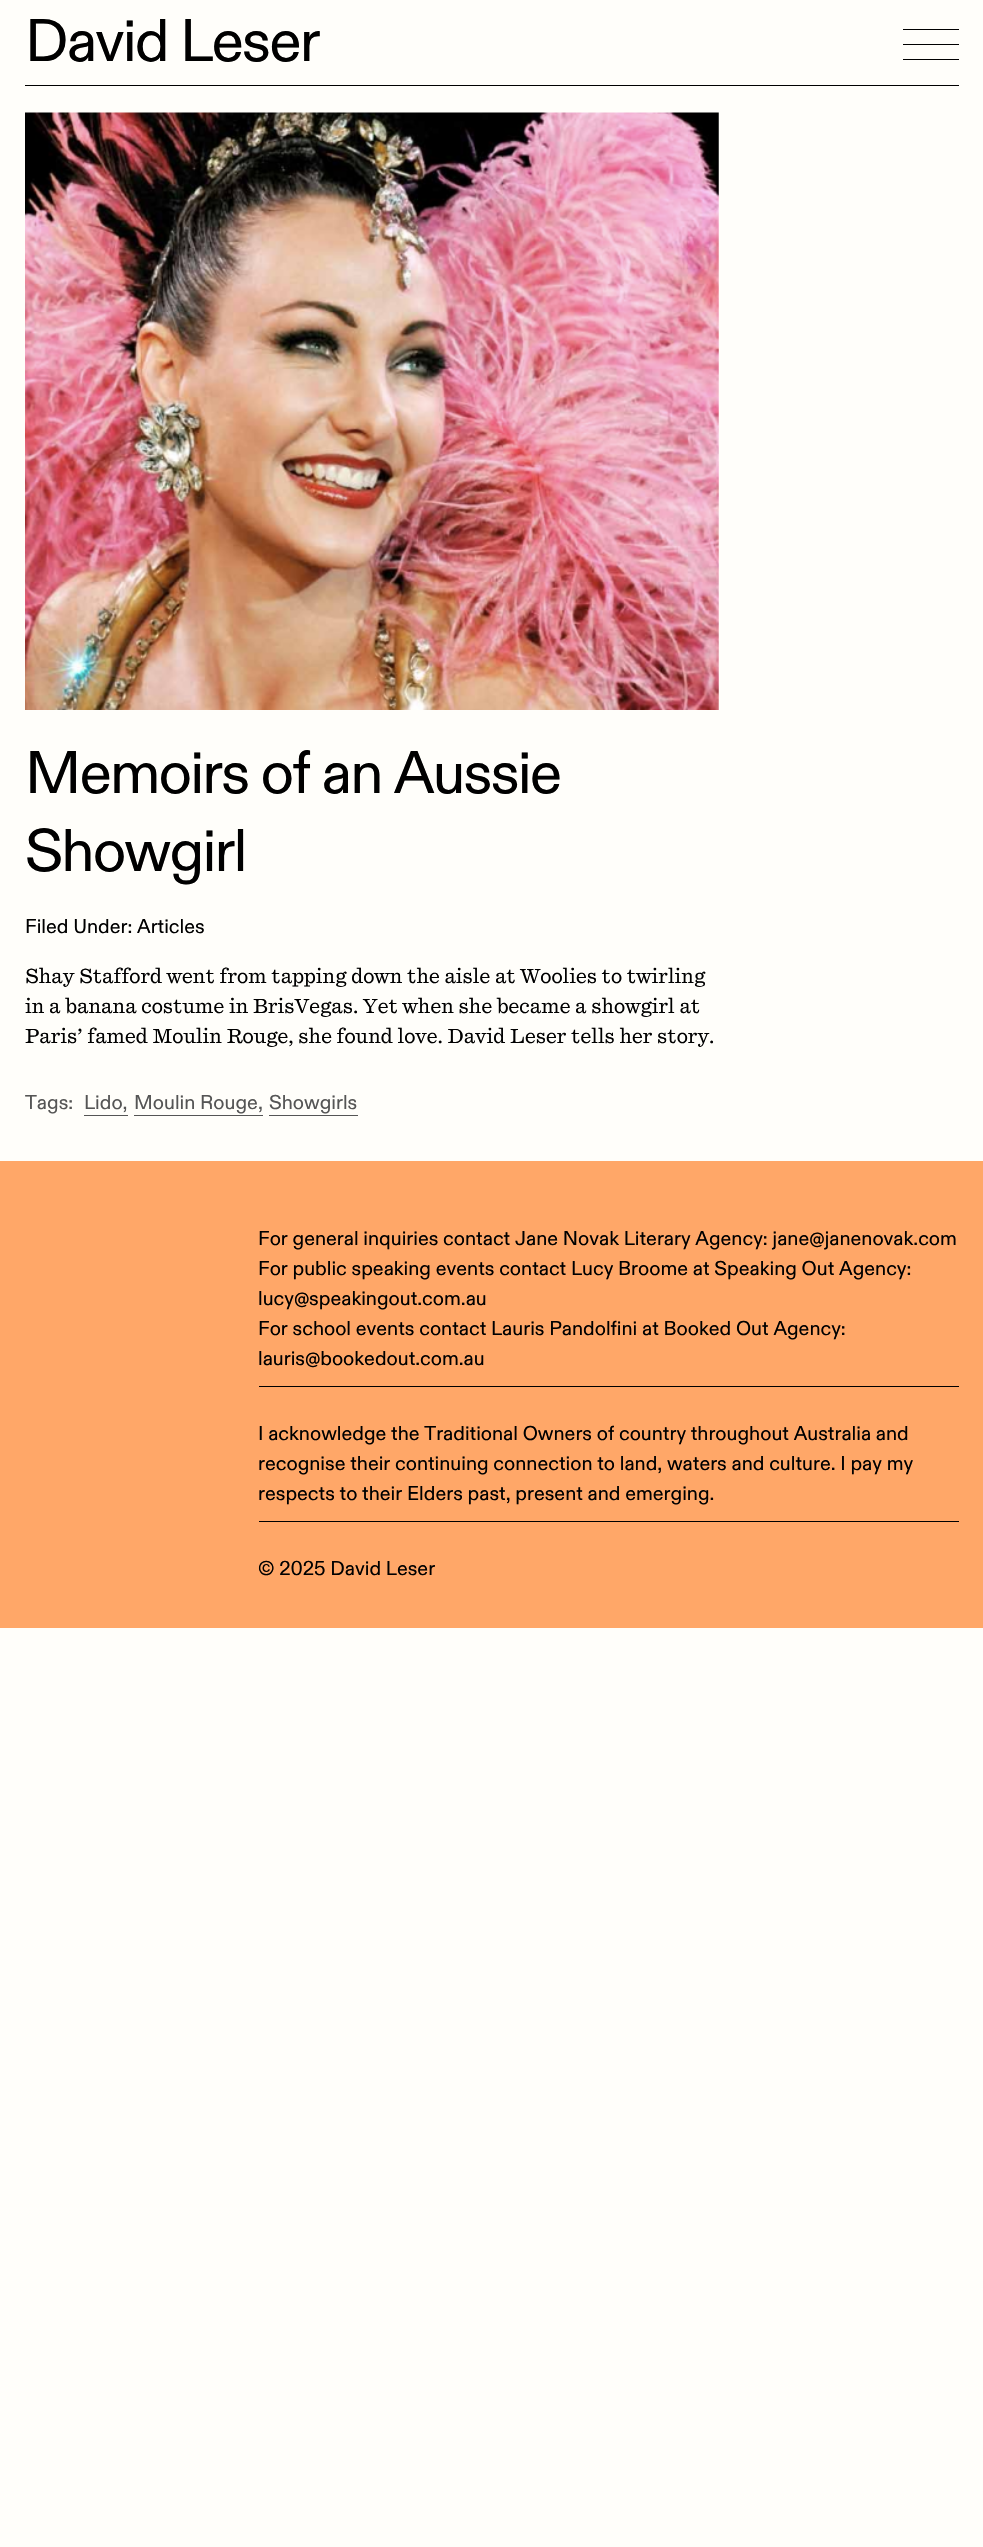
#include "include/core/SkBlurTypes.h"
#include "include/core/SkCanvas.h"
#include "include/core/SkData.h"
#include "include/core/SkFont.h"
#include "include/core/SkFontMgr.h"
#include "include/core/SkImage.h"
#include "include/core/SkMaskFilter.h"
#include "include/core/SkPaint.h"
#include "include/core/SkPathBuilder.h"
#include "include/core/SkTextBlob.h"
#include "include/effects/SkDashPathEffect.h"
#include "include/effects/SkGradientShader.h"
#include "include/utils/SkParsePath.h"

extern sk_sp<SkFontMgr> fontMgr;

void draw(SkCanvas* canvas) {
    SkPaint p;
    p.setAntiAlias(true);
    auto font = [&](const char* family, int weight, float size, bool italic = false) {
        SkFontStyle style(weight, SkFontStyle::kNormal_Width,
            italic ? SkFontStyle::kItalic_Slant : SkFontStyle::kUpright_Slant);
        SkFont result(fontMgr->matchFamilyStyle(family, style), size);
        result.setSubpixel(true);
        return result;
    };
    auto drawTracked = [&](const char* s, float x, float y, const SkFont& font, const SkPaint& ink, float letter, float word) {
        std::vector<SkGlyphID> glyphs(font.countText(s, strlen(s), SkTextEncoding::kUTF8));
        std::vector<float> xs(glyphs.size());
        font.textToGlyphs(s, strlen(s), SkTextEncoding::kUTF8, glyphs);
        font.getXPos(glyphs, xs, x);
        float extra = 0;
        for (size_t i = 0; i < glyphs.size(); i++) {
            xs[i] += extra;
            extra += letter + word * (glyphs[i] == font.unicharToGlyph(' '));
        }
        canvas->drawTextBlob(SkTextBlob::MakeFromPosHGlyphs(glyphs, xs, y, font), 0, 0, ink);
    };
    auto drawPhoto = [&](const char* path, float l, float t, float r, float b) {
        auto image = SkImages::DeferredFromEncodedData(SkData::MakeFromFileName(path));
        canvas->drawImageRect(image, SkRect::MakeLTRB(l, t, r, b), SkSamplingOptions());
    };
    canvas->clear(0xFFFFFEFA);
    auto font1 = font("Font", 400, 60);
    p.setColor(0xFF000000);
    drawTracked("David Leser", 25, 61, font1, p, -1.9f, 0);
    {
        const struct { float l, t, r, b; SkColor color; } items[] = {
            {903, 44, 959, 45, 0xFF000000},
            {903, 29, 959, 30, 0xFF000000},
            {903, 59, 959, 60, 0xFF000000},
            {25, 85, 959, 86, 0xFF000000},
        };
        for (auto [l, t, r, b, color] : items) {
            p.setColor(color);
            canvas->drawRect(SkRect::MakeLTRB(l, t, r, b), p);
        }
    }
    drawPhoto("media/1.png", 25, 112, 719, 710);
    drawTracked("Memoirs of an Aussie", 25, 793, font1, p, -1.9f, 0);
    drawTracked("Showgirl", 25, 871, font1, p, -1.9f, 0);
    auto font2 = font("Font", 400, 20);
    canvas->drawString("Filed Under: Articles", 25, 933, font2, p);
    auto font3 = font("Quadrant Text", 400, 20);
    {
        const struct { const char* s; float x, y; } items[] = {
            {"Shay Stafford went from tapping down the aisle at Woolies to twirling", 25, 983},
            {"in a banana costume in BrisVegas. Yet when she became a showgirl at", 25, 1013},
            {"Paris’ famed Moulin Rouge, she found love. David Leser tells her story.", 25, 1043},
        };
        for (auto [s, x, y] : items) {
            canvas->drawString(s, x, y, font3, p);
        }
    }
    p.setColor(0xFF555555);
    canvas->drawString("Tags:", 25, 1109, font2, p);
    canvas->drawRect(SkRect::MakeLTRB(84, 1115, 128, 1116), p);
    canvas->drawString("Lido,", 84, 1109, font2, p);
    canvas->drawRect(SkRect::MakeLTRB(134, 1115, 263, 1116), p);
    canvas->drawString("Moulin Rouge,", 134, 1109, font2, p);
    canvas->drawRect(SkRect::MakeLTRB(269, 1115, 358, 1116), p);
    canvas->drawString("Showgirls", 269, 1109, font2, p);
    p.setColor(0xFFFFA768);
    canvas->drawRect(SkRect::MakeLTRB(0, 1161, 983, 1628), p);
    p.setColor(0xFF000000);
    {
        const struct { const char* s; float x, y; } items[] = {
            {"For general inquiries contact Jane Novak Literary Agency: jane@janenovak.com", 258, 1245},
            {"For public speaking events contact Lucy Broome at Speaking Out Agency:", 258, 1275},
            {"lucy@speakingout.com.au", 258, 1305},
            {"For school events contact Lauris Pandolfini at Booked Out Agency:", 258, 1335},
            {"lauris@bookedout.com.au", 258, 1365},
        };
        for (auto [s, x, y] : items) {
            canvas->drawString(s, x, y, font2, p);
        }
    }
    canvas->drawRect(SkRect::MakeLTRB(259, 1386, 959, 1387), p);
    {
        const struct { const char* s; float x, y; } items[] = {
            {"I acknowledge the Traditional Owners of country throughout Australia and", 258, 1440},
            {"recognise their continuing connection to land, waters and culture. I pay my", 258, 1470},
            {"respects to their Elders past, present and emerging.", 258, 1500},
        };
        for (auto [s, x, y] : items) {
            canvas->drawString(s, x, y, font2, p);
        }
    }
    canvas->drawRect(SkRect::MakeLTRB(259, 1521, 959, 1522), p);
    canvas->drawString("© 2025 David Leser", 258, 1575, font2, p);
}
